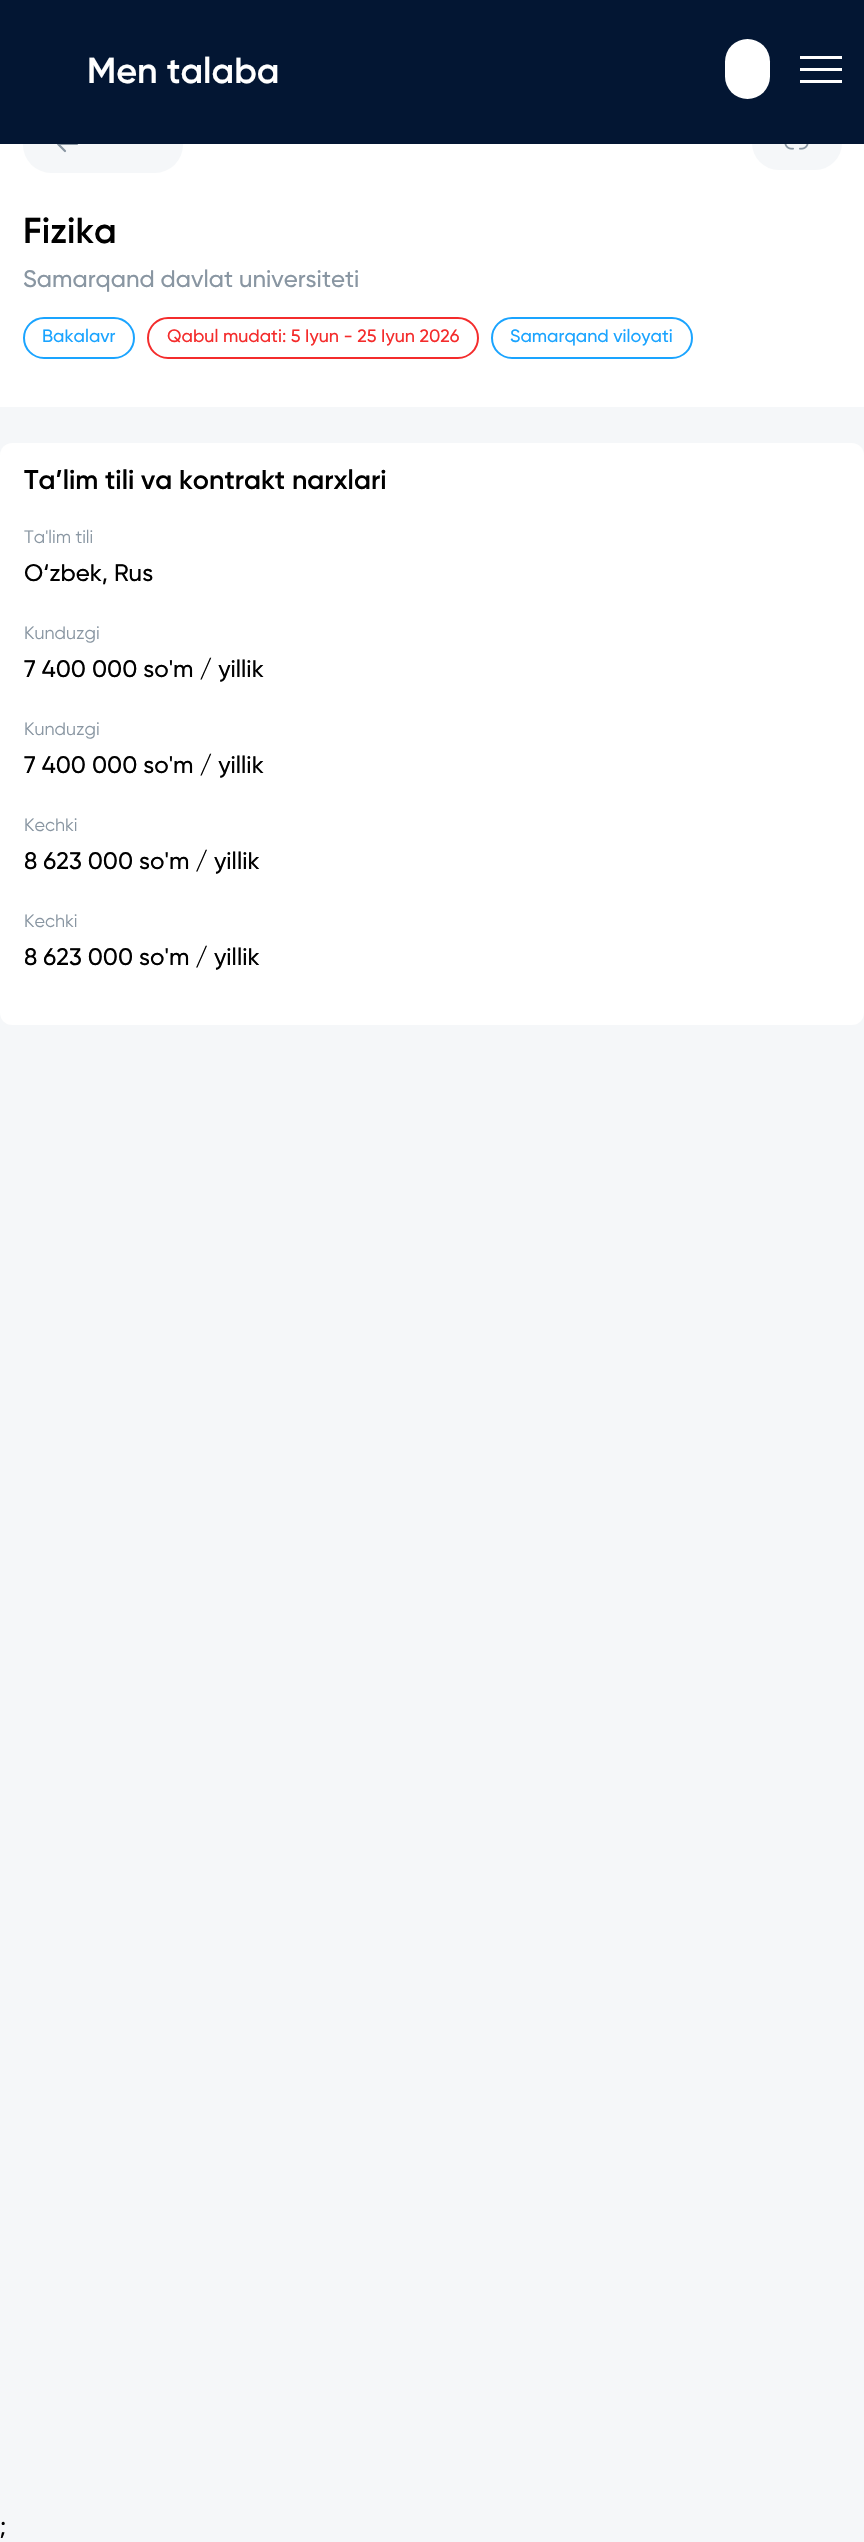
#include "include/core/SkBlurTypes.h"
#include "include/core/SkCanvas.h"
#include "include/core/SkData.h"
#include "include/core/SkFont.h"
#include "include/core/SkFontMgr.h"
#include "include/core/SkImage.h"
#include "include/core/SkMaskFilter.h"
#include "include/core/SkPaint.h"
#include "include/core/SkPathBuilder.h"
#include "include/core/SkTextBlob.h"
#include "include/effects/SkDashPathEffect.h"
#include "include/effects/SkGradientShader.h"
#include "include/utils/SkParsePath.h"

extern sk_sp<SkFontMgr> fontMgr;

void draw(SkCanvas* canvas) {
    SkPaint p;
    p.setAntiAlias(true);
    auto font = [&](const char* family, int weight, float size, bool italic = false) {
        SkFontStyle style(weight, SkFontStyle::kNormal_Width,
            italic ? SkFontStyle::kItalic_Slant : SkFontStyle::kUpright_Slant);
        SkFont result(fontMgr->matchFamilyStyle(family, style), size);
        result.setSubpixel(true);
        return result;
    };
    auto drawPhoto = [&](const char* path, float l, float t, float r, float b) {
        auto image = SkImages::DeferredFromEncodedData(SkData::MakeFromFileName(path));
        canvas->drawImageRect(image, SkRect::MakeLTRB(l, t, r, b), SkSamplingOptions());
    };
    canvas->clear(0xFFF5F7F9);
    p.setColor(0xFFFFFFFF);
    canvas->drawRect(SkRect::MakeLTRB(0, 144, 864, 407), p);
    p.setColor(0xFFF5F7F9);
    canvas->drawRoundRect(SkRect::MakeLTRB(23, 116, 183, 173), 28.5f, 28.5f, p);
    p.setStyle(SkPaint::kStroke_Style);
    p.setStrokeWidth(2.2f);
    p.setStrokeCap(SkPaint::kRound_Cap);
    p.setStrokeJoin(SkPaint::kRound_Join);
    p.setColor(0xFF8996A2);
    canvas->drawPath(SkPathBuilder().moveTo(65, 137).lineTo(58, 144).lineTo(65, 151).moveTo(77, 144).lineTo(58, 144).detach(), p);
    p.setStyle(SkPaint::kFill_Style);
    p.setColor(0xFFF5F7F9);
    canvas->drawRoundRect(SkRect::MakeLTRB(752, 116, 842, 170), 27, 27, p);
    p.setColor(0xFF031633);
    canvas->drawRect(SkRect::MakeLTRB(0, 0, 864, 144), p);
    auto font1 = font("Gilroy", 600, 36);
    p.setColor(0xFFFFFFFF);
    canvas->drawString("Men talaba", 87, 83, font1, p);
    canvas->drawRoundRect(SkRect::MakeLTRB(725, 39, 770, 99), 22.5f, 22.5f, p);
    {
        const struct { float l, t, r, b; SkColor color; } items[] = {
            {800, 56, 842, 59, 0xFFFFFFFF},
            {800, 68, 842, 71, 0xFFFFFFFF},
            {800, 80, 842, 83, 0xFFFFFFFF},
        };
        for (auto [l, t, r, b, color] : items) {
            p.setColor(color);
            canvas->drawRect(SkRect::MakeLTRB(l, t, r, b), p);
        }
    }
    drawPhoto("media/1.png", 784, 144, 809, 150);
    p.setColor(0xFF000000);
    canvas->drawString("Fizika", 23, 243, font1, p);
    auto font2 = font("Gilroy", 500, 24);
    p.setColor(0xFF8996A2);
    canvas->drawString("Samarqand davlat universiteti", 23, 287, font2, p);
    p.setStyle(SkPaint::kStroke_Style);
    p.setStrokeWidth(2);
    p.setStrokeCap(SkPaint::kButt_Cap);
    p.setStrokeJoin(SkPaint::kMiter_Join);
    p.setColor(0xFF1AA4FF);
    canvas->drawRoundRect(SkRect::MakeLTRB(24, 318, 134, 358), 20, 20, p);
    auto font3 = font("Gilroy", 500, 18);
    p.setStyle(SkPaint::kFill_Style);
    canvas->drawString("Bakalavr", 42, 342, font3, p);
    p.setStyle(SkPaint::kStroke_Style);
    p.setColor(0xFFF42C2C);
    canvas->drawRoundRect(SkRect::MakeLTRB(148, 318, 478, 358), 20, 20, p);
    p.setStyle(SkPaint::kFill_Style);
    canvas->drawString("Qabul mudati: 5 Iyun - 25 Iyun 2026", 167, 342, font3, p);
    p.setStyle(SkPaint::kStroke_Style);
    p.setColor(0xFF1AA4FF);
    canvas->drawRoundRect(SkRect::MakeLTRB(492, 318, 692, 358), 20, 20, p);
    p.setStyle(SkPaint::kFill_Style);
    canvas->drawString("Samarqand viloyati", 510, 342, font3, p);
    p.setColor(0xFFFFFFFF);
    canvas->drawRoundRect(SkRect::MakeLTRB(0, 443, 864, 1025), 12, 12, p);
    auto font4 = font("Gilroy", 600, 27);
    p.setColor(0xFF000000);
    canvas->drawString("Ta’lim tili va kontrakt narxlari", 24, 489, font4, p);
    auto font5 = font("Gilroy", 400, 18);
    p.setColor(0xFF8996A2);
    canvas->drawString("Ta'lim tili", 24, 543, font5, p);
    p.setColor(0xFF000000);
    canvas->drawString("O‘zbek, Rus", 24, 581, font2, p);
    p.setColor(0xFF8996A2);
    canvas->drawString("Kunduzgi", 24, 639, font5, p);
    p.setColor(0xFF000000);
    canvas->drawString("7 400 000 so'm / yillik", 24, 677, font2, p);
    p.setColor(0xFF8996A2);
    canvas->drawString("Kunduzgi", 24, 735, font5, p);
    p.setColor(0xFF000000);
    canvas->drawString("7 400 000 so'm / yillik", 24, 773, font2, p);
    p.setColor(0xFF8996A2);
    canvas->drawString("Kechki", 24, 831, font5, p);
    p.setColor(0xFF000000);
    canvas->drawString("8 623 000 so'm / yillik", 24, 869, font2, p);
    p.setColor(0xFF8996A2);
    canvas->drawString("Kechki", 24, 927, font5, p);
    p.setColor(0xFF000000);
    canvas->drawString("8 623 000 so'm / yillik", 24, 965, font2, p);
    auto font6 = font("Noto Sans", 400, 24);
    canvas->drawString(";", 0, 2535, font6, p);
}
